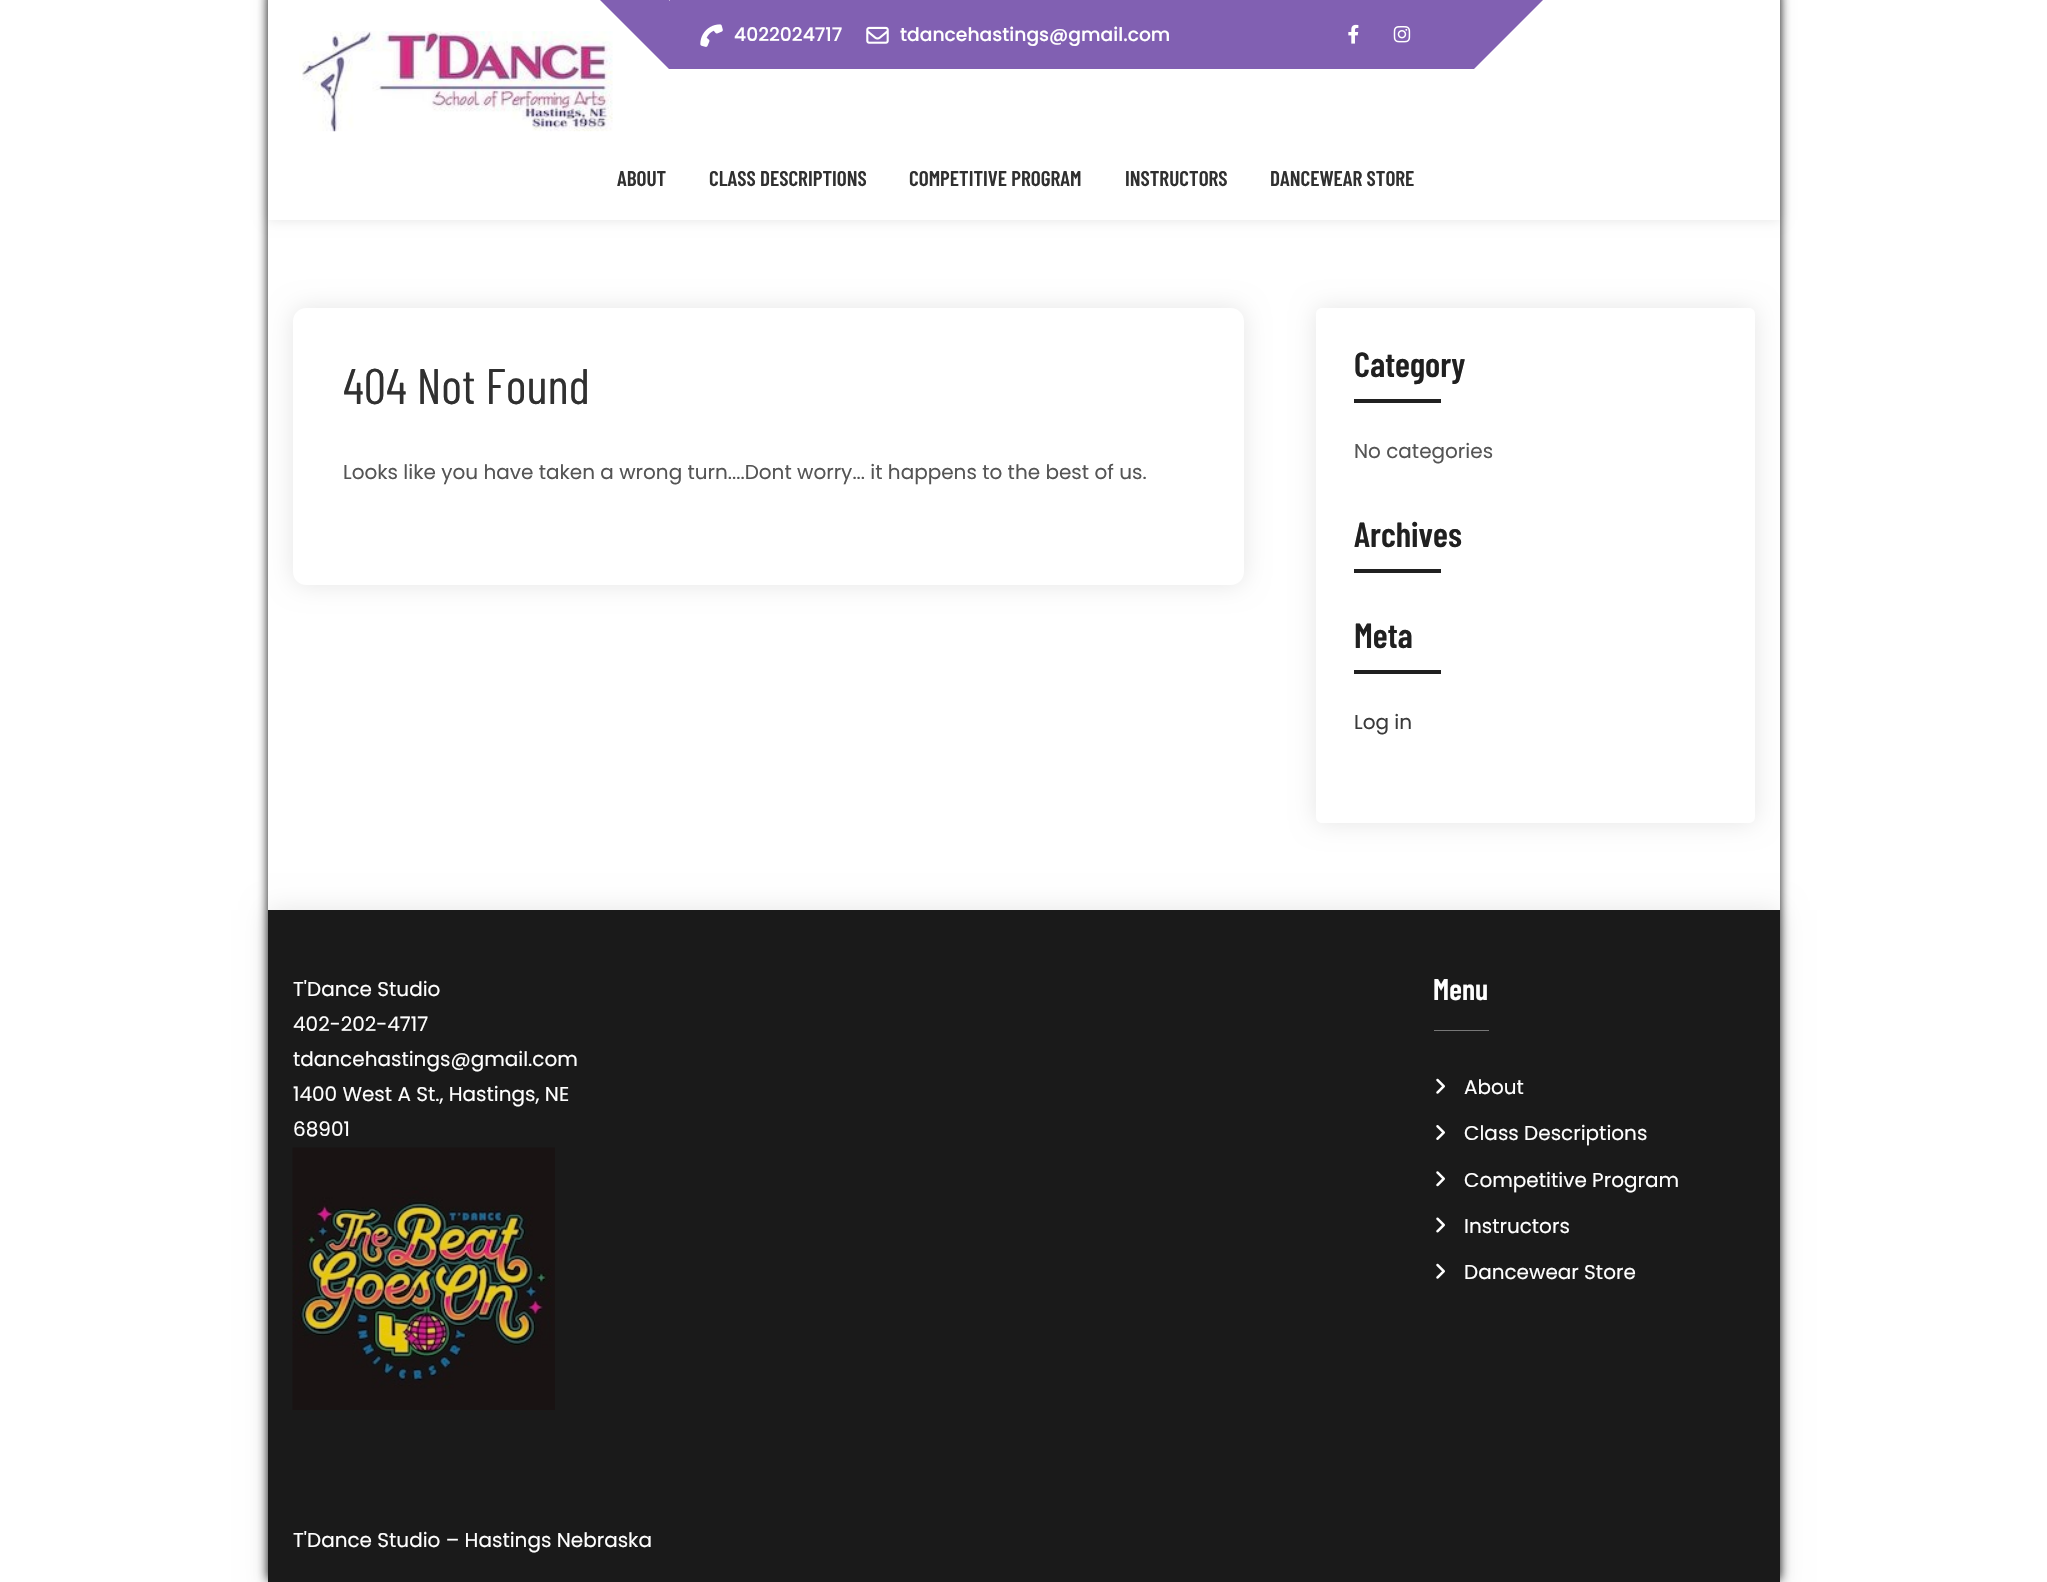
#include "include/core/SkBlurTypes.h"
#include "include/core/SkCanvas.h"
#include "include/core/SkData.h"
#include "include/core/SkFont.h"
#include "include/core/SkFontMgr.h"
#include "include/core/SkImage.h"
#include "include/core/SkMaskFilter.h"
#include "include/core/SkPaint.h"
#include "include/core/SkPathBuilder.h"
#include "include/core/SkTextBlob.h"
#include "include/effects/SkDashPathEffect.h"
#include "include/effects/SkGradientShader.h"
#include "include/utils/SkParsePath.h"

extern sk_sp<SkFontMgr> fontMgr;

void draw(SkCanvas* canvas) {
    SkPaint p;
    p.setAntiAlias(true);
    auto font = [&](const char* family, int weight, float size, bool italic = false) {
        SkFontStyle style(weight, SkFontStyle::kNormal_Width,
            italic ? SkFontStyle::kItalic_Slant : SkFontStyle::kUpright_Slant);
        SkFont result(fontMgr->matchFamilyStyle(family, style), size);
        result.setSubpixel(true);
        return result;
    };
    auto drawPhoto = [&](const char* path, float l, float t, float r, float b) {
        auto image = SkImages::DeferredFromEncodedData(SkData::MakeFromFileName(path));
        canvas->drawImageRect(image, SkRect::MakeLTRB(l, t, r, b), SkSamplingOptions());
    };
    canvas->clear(0xFFFFFFFF);
    canvas->save();
    canvas->clipPath(SkPathBuilder(SkPathFillType::kEvenOdd).moveTo(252, 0).lineTo(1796, 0).lineTo(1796, 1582).lineTo(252, 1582).close().moveTo(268, 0).lineTo(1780, 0).lineTo(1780, 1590).lineTo(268, 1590).close().detach(), true);
    p.setColor(0xFF111111);
    p.setMaskFilter(SkMaskFilter::MakeBlur(kNormal_SkBlurStyle, 5));
    canvas->drawRect(SkRect::MakeLTRB(268, -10, 1780, 1580), p);
    p.setMaskFilter(nullptr);
    canvas->restore();
    canvas->save();
    canvas->clipPath(SkPathBuilder(SkPathFillType::kEvenOdd).moveTo(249, 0).lineTo(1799, 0).lineTo(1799, 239).lineTo(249, 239).close().moveTo(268, 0).lineTo(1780, 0).lineTo(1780, 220).lineTo(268, 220).close().detach(), true);
    p.setColor(0x1A000000);
    p.setMaskFilter(SkMaskFilter::MakeBlur(kNormal_SkBlurStyle, 6));
    canvas->drawRect(SkRect::MakeLTRB(268, 0, 1780, 220), p);
    p.setMaskFilter(nullptr);
    canvas->restore();
    p.setColor(0xFF8160B2);
    canvas->drawRect(SkRect::MakeLTRB(670, 0, 1474, 69), p);
    auto font1 = font("Poppins", 500, 18.75f);
    p.setColor(0xFFFFFFFF);
    canvas->drawString("4022024717", 734, 41, font1, p);
    p.setColor(0xFF8160B2);
    canvas->drawPath(SkPathBuilder().moveTo(600, 0).lineTo(669, 0).lineTo(738, 69).lineTo(669, 69).close().detach(), p);
    drawPhoto("media/1.png", 299, 31, 613, 132);
    drawPhoto("media/2.png", 700, 24, 723, 47);
    drawPhoto("media/3.png", 866, 26, 889, 44);
    p.setColor(0xFFFFFFFF);
    canvas->drawString("tdancehastings@gmail.com", 900, 41, font1, p);
    drawPhoto("media/4.png", 1348, 24, 1359, 44);
    drawPhoto("media/5.png", 1393, 26, 1411, 43);
    p.setColor(0xFF8160B2);
    canvas->drawPath(SkPathBuilder().moveTo(1474, 0).lineTo(1543, 0).lineTo(1474, 69).lineTo(1406, 69).close().detach(), p);
    auto font2 = font("Barlow Condensed", 600, 21.25f);
    p.setColor(0xFF303030);
    {
        const struct { const char* s; float x, y; } items[] = {
            {"ABOUT", 617, 186},
            {"CLASS DESCRIPTIONS", 709, 186},
            {"COMPETITIVE PROGRAM", 909, 186},
            {"INSTRUCTORS", 1125, 186},
            {"DANCEWEAR STORE", 1270, 186},
        };
        for (auto [s, x, y] : items) {
            canvas->drawString(s, x, y, font2, p);
        }
    }
    canvas->save();
    canvas->clipPath(SkPathBuilder(SkPathFillType::kEvenOdd).moveTo(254, 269).lineTo(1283, 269).lineTo(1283, 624).lineTo(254, 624).close().moveTo(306, 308).lineTo(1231, 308).cubicTo(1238, 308, 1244, 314, 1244, 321).lineTo(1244, 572).cubicTo(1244, 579, 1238, 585, 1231, 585).lineTo(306, 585).cubicTo(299, 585, 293, 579, 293, 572).lineTo(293, 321).cubicTo(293, 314, 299, 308, 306, 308).close().detach(), true);
    p.setColor(0x1A000000);
    p.setMaskFilter(SkMaskFilter::MakeBlur(kNormal_SkBlurStyle, 12.5f));
    canvas->drawRoundRect(SkRect::MakeLTRB(293, 308, 1244, 585), 13, 13, p);
    p.setMaskFilter(nullptr);
    canvas->restore();
    auto font3 = font("Barlow Condensed", 400, 50);
    p.setColor(0xFF303030);
    canvas->drawString("404 Not Found", 343, 404, font3, p);
    auto font4 = font("Poppins", 400, 20);
    p.setColor(0xFF555555);
    canvas->drawString("Looks like you have taken a wrong turn....Dont worry... it happens to the best of us.", 343, 479, font4, p);
    canvas->save();
    canvas->clipPath(SkPathBuilder(SkPathFillType::kEvenOdd).moveTo(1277, 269).lineTo(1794, 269).lineTo(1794, 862).lineTo(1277, 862).close().moveTo(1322, 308).lineTo(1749, 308).cubicTo(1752.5f, 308, 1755, 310.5f, 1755, 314).lineTo(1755, 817).cubicTo(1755, 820.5f, 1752.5f, 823, 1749, 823).lineTo(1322, 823).cubicTo(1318.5f, 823, 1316, 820.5f, 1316, 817).lineTo(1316, 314).cubicTo(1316, 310.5f, 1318.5f, 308, 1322, 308).close().detach(), true);
    p.setColor(0x1A000000);
    p.setMaskFilter(SkMaskFilter::MakeBlur(kNormal_SkBlurStyle, 12.5f));
    canvas->drawRoundRect(SkRect::MakeLTRB(1316, 308, 1755, 823), 6, 6, p);
    p.setMaskFilter(nullptr);
    canvas->restore();
    auto font5 = font("Barlow Condensed", 600, 35);
    p.setColor(0xFF202020);
    canvas->drawString("Category", 1354, 377, font5, p);
    canvas->drawRect(SkRect::MakeLTRB(1354, 399, 1441, 403), p);
    p.setColor(0xFF555555);
    canvas->drawString("No categories", 1354, 458, font4, p);
    p.setColor(0xFF202020);
    canvas->drawString("Archives", 1354, 547, font5, p);
    canvas->drawRect(SkRect::MakeLTRB(1354, 569, 1441, 573), p);
    canvas->drawString("Meta", 1354, 648, font5, p);
    canvas->drawRect(SkRect::MakeLTRB(1354, 670, 1441, 674), p);
    p.setColor(0xFF3B3B3B);
    canvas->drawString("Log in", 1354, 729, font4, p);
    p.setColor(0x1A000000);
    p.setMaskFilter(SkMaskFilter::MakeBlur(kNormal_SkBlurStyle, 12.5f));
    canvas->drawRect(SkRect::MakeLTRB(268, 910, 1780, 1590), p);
    p.setMaskFilter(nullptr);
    p.setColor(0xFF1A1A1A);
    canvas->drawRect(SkRect::MakeLTRB(268, 910, 1780, 1582), p);
    p.setColor(0xFFFFFFFF);
    {
        const struct { const char* s; float x, y; } items[] = {
            {"T'Dance Studio", 293, 996},
            {"402-202-4717", 293, 1031},
            {"tdancehastings@gmail.com", 293, 1066},
            {"1400 West A St., Hastings, NE", 293, 1101},
            {"68901", 293, 1136},
        };
        for (auto [s, x, y] : items) {
            canvas->drawString(s, x, y, font4, p);
        }
    }
    drawPhoto("media/6.png", 292, 1147, 555, 1410);
    p.setColor(0xFF777777);
    canvas->drawRect(SkRect::MakeLTRB(1434, 1030, 1489, 1031), p);
    auto font6 = font("Barlow Condensed", 600, 30);
    p.setColor(0xFFFFFFFF);
    canvas->drawString("Menu", 1433, 1000, font6, p);
    drawPhoto("media/7.png", 1436, 1078, 1445, 1094);
    canvas->drawString("About", 1464, 1094, font4, p);
    drawPhoto("media/8.png", 1436, 1125, 1445, 1140);
    canvas->drawString("Class Descriptions", 1464, 1140, font4, p);
    drawPhoto("media/9.png", 1436, 1171, 1445, 1187);
    canvas->drawString("Competitive Program", 1464, 1187, font4, p);
    drawPhoto("media/10.png", 1436, 1217, 1445, 1233);
    canvas->drawString("Instructors", 1464, 1233, font4, p);
    drawPhoto("media/7.png", 1436, 1263, 1445, 1279);
    canvas->drawString("Dancewear Store", 1464, 1279, font4, p);
    canvas->drawString("T'Dance Studio – Hastings Nebraska", 293, 1547, font4, p);
}
